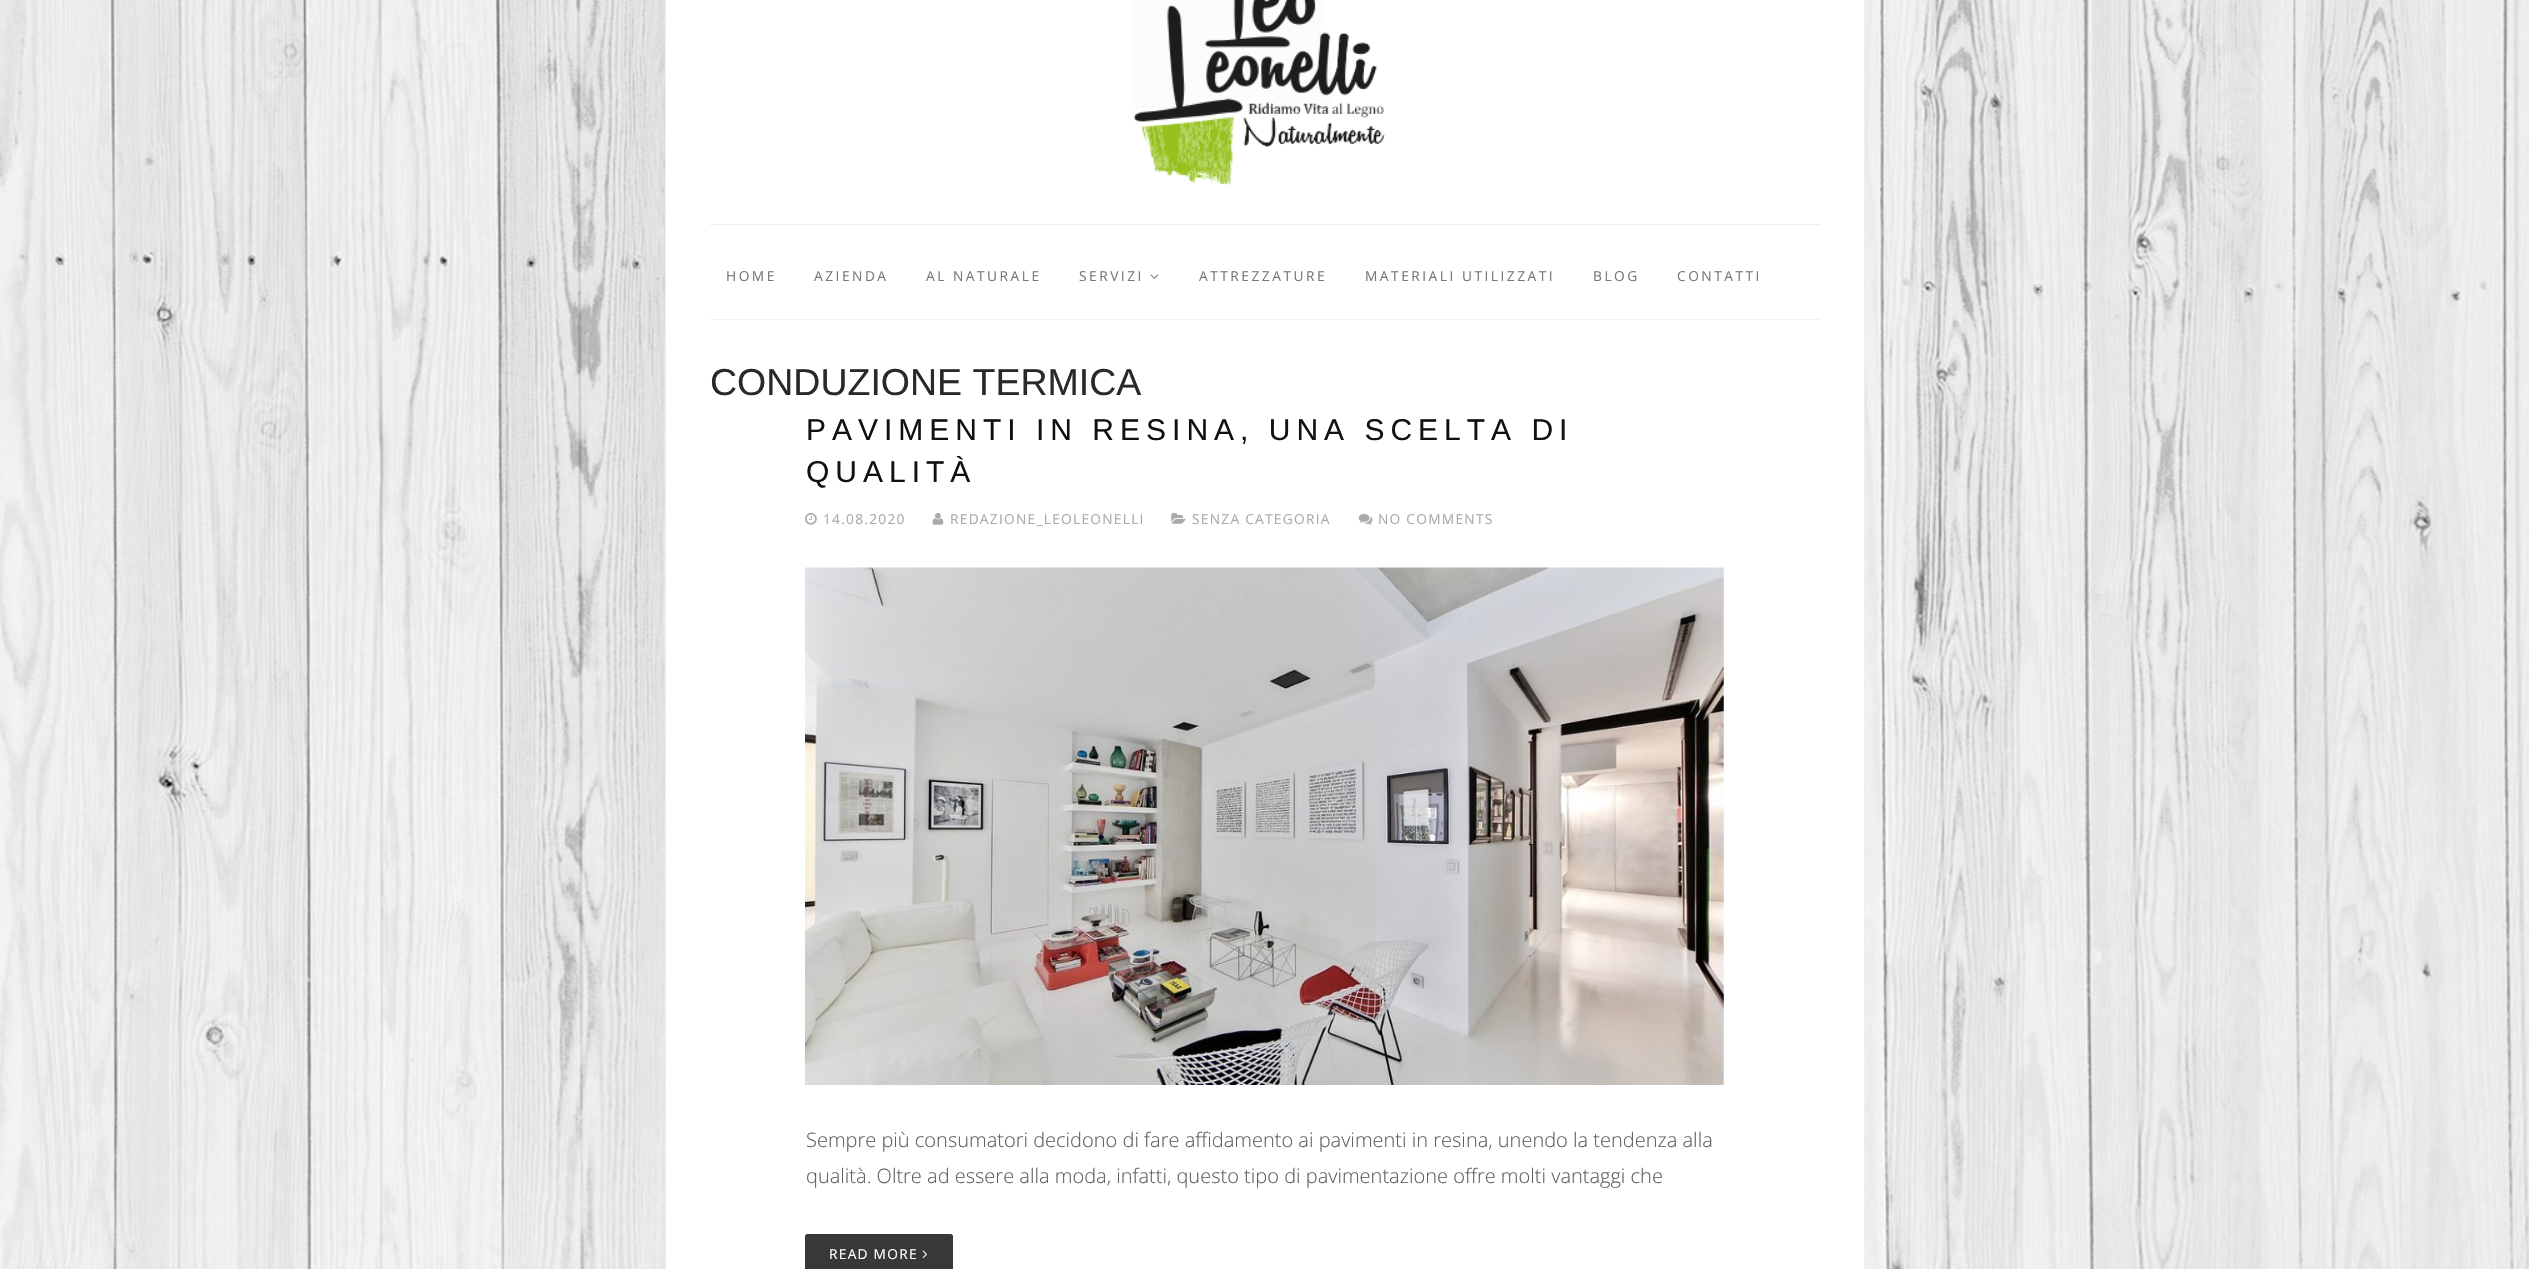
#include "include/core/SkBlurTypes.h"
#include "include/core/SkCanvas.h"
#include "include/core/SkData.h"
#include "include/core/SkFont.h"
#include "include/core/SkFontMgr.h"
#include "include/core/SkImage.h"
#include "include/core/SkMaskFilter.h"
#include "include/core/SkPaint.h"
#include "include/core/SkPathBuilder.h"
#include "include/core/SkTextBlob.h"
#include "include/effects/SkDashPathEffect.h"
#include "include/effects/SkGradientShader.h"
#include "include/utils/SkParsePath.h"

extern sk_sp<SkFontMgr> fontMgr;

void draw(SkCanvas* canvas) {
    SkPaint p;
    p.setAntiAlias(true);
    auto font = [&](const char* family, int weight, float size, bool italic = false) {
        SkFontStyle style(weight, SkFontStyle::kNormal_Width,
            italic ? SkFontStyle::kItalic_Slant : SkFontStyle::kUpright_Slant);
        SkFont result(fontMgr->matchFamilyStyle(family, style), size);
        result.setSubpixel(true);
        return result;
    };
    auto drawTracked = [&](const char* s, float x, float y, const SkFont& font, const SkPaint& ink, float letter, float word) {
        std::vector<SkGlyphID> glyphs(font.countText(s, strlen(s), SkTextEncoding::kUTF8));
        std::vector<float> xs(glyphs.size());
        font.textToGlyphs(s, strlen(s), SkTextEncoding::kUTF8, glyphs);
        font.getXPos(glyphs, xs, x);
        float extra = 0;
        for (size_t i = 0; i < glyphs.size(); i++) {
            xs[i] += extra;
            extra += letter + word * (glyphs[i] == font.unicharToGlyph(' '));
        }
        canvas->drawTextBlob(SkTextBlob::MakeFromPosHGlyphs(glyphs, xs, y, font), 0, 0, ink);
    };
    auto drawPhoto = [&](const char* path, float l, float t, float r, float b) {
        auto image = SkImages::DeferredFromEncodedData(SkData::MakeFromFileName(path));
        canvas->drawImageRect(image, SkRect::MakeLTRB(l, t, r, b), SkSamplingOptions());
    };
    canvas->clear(0xFFFFFFFF);
    drawPhoto("media/1.png", 0, 0, 2529, 1269);
    p.setColor(0xFFEFEFEF);
    canvas->drawRect(SkRect::MakeLTRB(1864, 108, 1865, 198), p);
    p.setColor(0xFFFFFFFF);
    canvas->drawRect(SkRect::MakeLTRB(666, 0, 1864, 1269), p);
    drawPhoto("media/2.png", 1133, 0, 1386, 186);
    {
        const struct { float l, t, r, b; SkColor color; } items[] = {
            {1864, 321, 1865, 1221, 0xFFEFEFEF},
            {665, 0, 666, 1269, 0xFFEFEFEF},
            {710, 224, 1820, 225, 0xFFEEEEEE},
            {710, 319, 1820, 320, 0xFFF2F2F2},
        };
        for (auto [l, t, r, b, color] : items) {
            p.setColor(color);
            canvas->drawRect(SkRect::MakeLTRB(l, t, r, b), p);
        }
    }
    auto font1 = font("Open Sans", 400, 13.75f);
    p.setColor(0xFF777777);
    {
        const struct { const char* s; float x, y; } items[] = {
            {"HOME", 726, 281},
            {"AZIENDA", 814, 281},
            {"AL NATURALE", 926, 281},
            {"SERVIZI", 1079, 281},
        };
        for (auto [s, x, y] : items) {
            drawTracked(s, x, y, font1, p, 2.5f, 0);
        }
    }
    drawPhoto("media/3.png", 1150, 274, 1159, 279);
    {
        const struct { const char* s; float x, y; } items[] = {
            {"ATTREZZATURE", 1199, 281},
            {"MATERIALI UTILIZZATI", 1365, 281},
            {"BLOG", 1593, 281},
            {"CONTATTI", 1677, 281},
        };
        for (auto [s, x, y] : items) {
            drawTracked(s, x, y, font1, p, 2.5f, 0);
        }
    }
    auto font2 = font("Liberation Sans", 400, 37.5f);
    p.setColor(0xFF292929);
    canvas->drawString("CONDUZIONE TERMICA", 710, 395, font2, p);
    auto font3 = font("Liberation Sans", 400, 30);
    p.setColor(0xFF111111);
    drawTracked("PAVIMENTI IN RESINA, UNA SCELTA DI", 806, 440, font3, p, 6, 0);
    drawTracked("QUALITÀ", 806, 482, font3, p, 6, 0);
    drawPhoto("media/4.png", 805, 513, 817, 525);
    p.setColor(0xFFAAAAAA);
    drawTracked("14.08.2020", 823, 524, font1, p, 1.25f, 0);
    drawPhoto("media/5.png", 932, 513, 944, 525);
    drawTracked("REDAZIONE_LEOLEONELLI", 950, 524, font1, p, 1.25f, 0);
    drawPhoto("media/6.png", 1171, 512, 1186, 524);
    drawTracked("SENZA CATEGORIA", 1192, 524, font1, p, 1.25f, 0);
    drawPhoto("media/7.png", 1358, 514, 1373, 525);
    drawTracked("NO COMMENTS", 1378, 524, font1, p, 1.25f, 0);
    drawPhoto("media/8.png", 805, 567, 1724, 1085);
    auto font4 = font("Open Sans", 300, 20);
    p.setColor(0xFF5F5F5F);
    canvas->drawString("Sempre più consumatori decidono di fare affidamento ai pavimenti in resina, unendo la tendenza alla", 806, 1147, font4, p);
    canvas->drawString("qualità. Oltre ad essere alla moda, infatti, questo tipo di pavimentazione offre molti vantaggi che", 806, 1183, font4, p);
    p.setColor(0xFF383838);
    canvas->drawRoundRect(SkRect::MakeLTRB(805, 1234, 953, 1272), 2.5f, 2.5f, p);
    p.setColor(0xFFFFFFFF);
    drawTracked("READ MORE", 829, 1259, font1, p, 1.25f, 0);
    drawPhoto("media/9.png", 922, 1250, 927, 1259);
}
